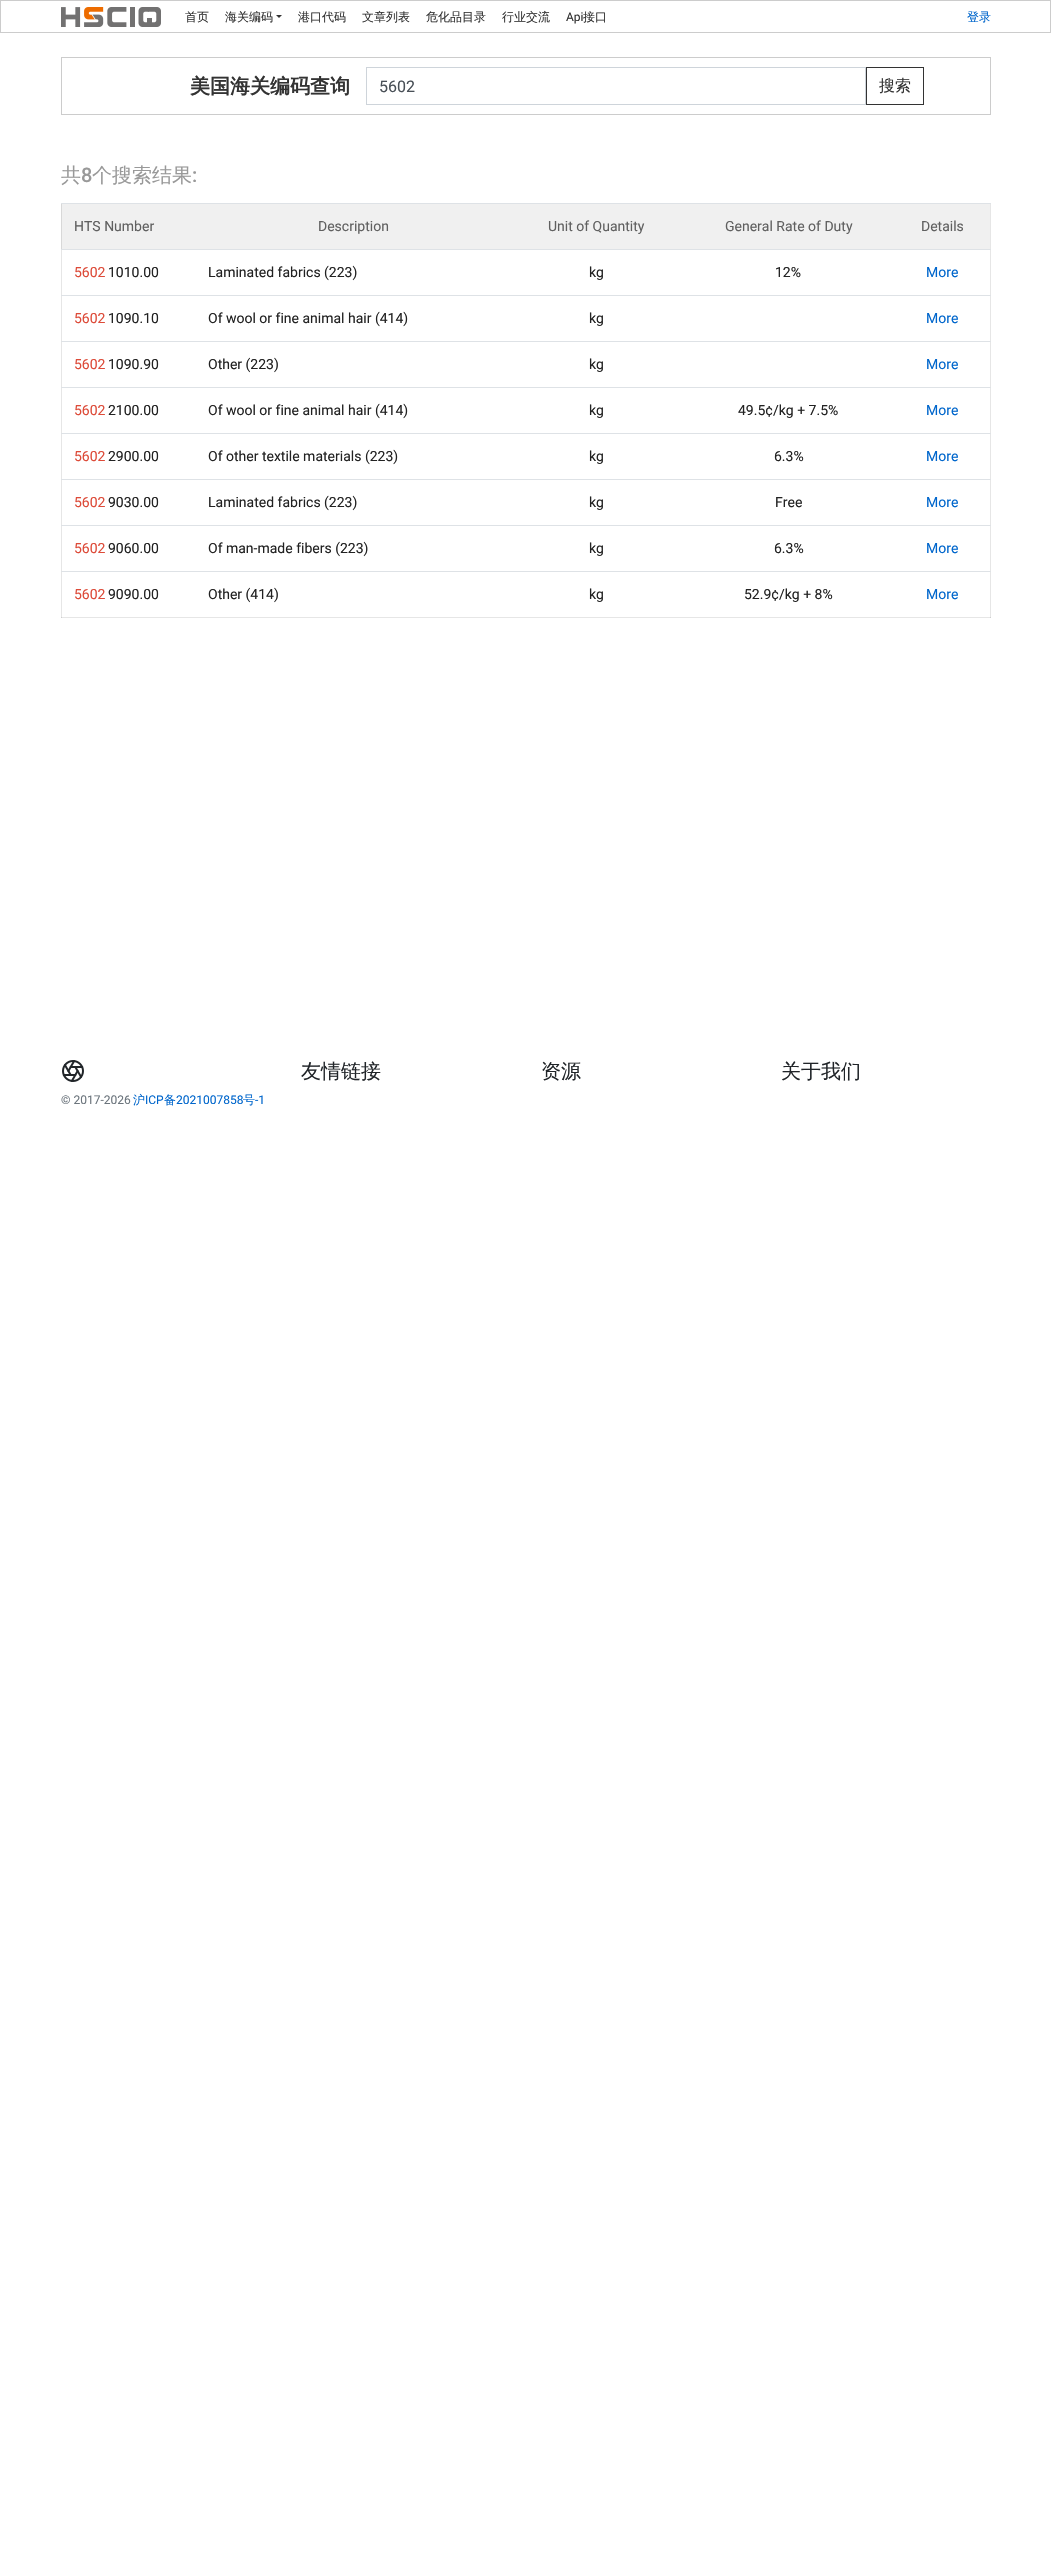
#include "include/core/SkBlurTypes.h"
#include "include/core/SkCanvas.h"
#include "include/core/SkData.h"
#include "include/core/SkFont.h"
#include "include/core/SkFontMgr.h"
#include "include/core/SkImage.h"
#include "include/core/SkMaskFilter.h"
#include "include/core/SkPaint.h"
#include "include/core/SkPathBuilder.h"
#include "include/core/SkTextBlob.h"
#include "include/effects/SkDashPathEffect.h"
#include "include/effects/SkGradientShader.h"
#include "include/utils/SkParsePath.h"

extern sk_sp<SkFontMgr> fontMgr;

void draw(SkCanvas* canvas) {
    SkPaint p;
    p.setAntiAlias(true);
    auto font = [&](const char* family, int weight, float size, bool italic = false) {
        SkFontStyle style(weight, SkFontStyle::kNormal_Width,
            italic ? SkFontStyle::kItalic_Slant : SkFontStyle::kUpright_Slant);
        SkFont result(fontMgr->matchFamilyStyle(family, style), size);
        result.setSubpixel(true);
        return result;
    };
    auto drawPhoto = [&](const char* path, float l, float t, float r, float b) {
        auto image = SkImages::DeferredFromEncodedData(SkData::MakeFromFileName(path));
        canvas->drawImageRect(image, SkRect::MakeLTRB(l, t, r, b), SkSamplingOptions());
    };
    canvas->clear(0xFFFFFFFF);
    {
        const struct { float l, t, r, b; SkColor color; } items[] = {
            {61, 250, 62, 618, 0xFFE6E6E6},
            {61, 617, 991, 618, 0xFFE6E6E6},
            {61, 617, 62, 618, 0xFFCFCFCF},
            {990, 203, 991, 618, 0xFFE6E6E6},
            {990, 617, 991, 618, 0xFFCFCFCF},
        };
        for (auto [l, t, r, b, color] : items) {
            p.setColor(color);
            canvas->drawRect(SkRect::MakeLTRB(l, t, r, b), p);
        }
    }
    p.setStyle(SkPaint::kStroke_Style);
    p.setStrokeWidth(1);
    p.setColor(0xFFCCCCCC);
    canvas->drawRect(SkRect::MakeLTRB(0.5f, 0.5f, 1050.5f, 32.5f), p);
    drawPhoto("media/1.png", 61, 7, 161, 27);
    auto font1 = font("WenQuanYi Zen Hei", 500, 12);
    p.setStyle(SkPaint::kFill_Style);
    p.setColor(0xFF333333);
    canvas->drawString("首页", 185, 21, font1, p);
    canvas->drawString("海关编码", 225, 21, font1, p);
    canvas->drawPath(SkPathBuilder().moveTo(276, 15).lineTo(282, 15).lineTo(279, 18).close().detach(), p);
    {
        const struct { const char* s; float x, y; } items[] = {
            {"港口代码", 298, 21},
            {"文章列表", 362, 21},
            {"危化品目录", 426, 21},
            {"行业交流", 502, 21},
        };
        for (auto [s, x, y] : items) {
            canvas->drawString(s, x, y, font1, p);
        }
    }
    auto font2 = font("Roboto", 400, 12);
    canvas->drawString("Api", 566, 21, font2, p);
    canvas->drawString("接口", 583, 21, font1, p);
    p.setColor(0xFF0066CC);
    canvas->drawString("登录", 967, 21, font1, p);
    p.setStyle(SkPaint::kStroke_Style);
    p.setColor(0xFFCCCCCC);
    canvas->drawRect(SkRect::MakeLTRB(61.5f, 57.5f, 990.5f, 114.5f), p);
    auto font3 = font("WenQuanYi Zen Hei", 700, 20);
    p.setStyle(SkPaint::kFill_Style);
    p.setColor(0xFF333333);
    canvas->drawString("美国海关编码查询", 190, 93, font3, p);
    p.setStyle(SkPaint::kStroke_Style);
    p.setColor(0xFFCED4DA);
    canvas->drawRect(SkRect::MakeLTRB(366.5f, 67.5f, 865.5f, 104.5f), p);
    auto font4 = font("Roboto", 400, 16);
    p.setStyle(SkPaint::kFill_Style);
    p.setColor(0xFF495057);
    canvas->drawString("5602", 379, 92, font4, p);
    p.setStyle(SkPaint::kStroke_Style);
    p.setColor(0xFF333333);
    canvas->drawRect(SkRect::MakeLTRB(866.5f, 67.5f, 923.5f, 104.5f), p);
    auto font5 = font("WenQuanYi Zen Hei", 500, 16);
    p.setStyle(SkPaint::kFill_Style);
    canvas->drawString("搜索", 879, 91, font5, p);
    auto font6 = font("WenQuanYi Zen Hei", 500, 20);
    p.setColor(0xFF999999);
    canvas->drawString("共", 61, 182, font6, p);
    auto font7 = font("Roboto", 500, 20);
    canvas->drawString("8", 81, 182, font7, p);
    canvas->drawString("个搜索结果", 92, 182, font6, p);
    canvas->drawString(":", 192, 182, font7, p);
    p.setColor(0xFFF0F0F0);
    canvas->drawRect(SkRect::MakeLTRB(62, 204, 990, 249), p);
    p.setColor(0xFFD8D8D8);
    canvas->drawRect(SkRect::MakeLTRB(61, 204, 62, 250), p);
    auto font8 = font("Roboto", 400, 14);
    p.setColor(0xFF606060);
    {
        const struct { const char* s; float x, y; } items[] = {
            {"HTS Number", 74, 231},
            {"Description", 318, 231},
            {"Unit of Quantity", 548, 231},
            {"General Rate of Duty", 725, 231},
        };
        for (auto [s, x, y] : items) {
            canvas->drawString(s, x, y, font8, p);
        }
    }
    p.setColor(0xFFDEE2E6);
    canvas->drawRect(SkRect::MakeLTRB(61, 203, 991, 204), p);
    p.setColor(0xFF606060);
    canvas->drawString("Details", 921, 231, font8, p);
    p.setColor(0xFFDD4B39);
    canvas->drawString("5602", 74, 277, font8, p);
    p.setColor(0xFF222222);
    {
        const struct { const char* s; float x, y; } items[] = {
            {"1010.00", 108, 277},
            {"Laminated fabrics (223)", 208, 277},
            {"kg", 589, 277},
            {"12%", 775, 277},
        };
        for (auto [s, x, y] : items) {
            canvas->drawString(s, x, y, font8, p);
        }
    }
    p.setColor(0xFFDEE2E6);
    canvas->drawRect(SkRect::MakeLTRB(61, 249, 991, 250), p);
    p.setColor(0xFF0066CC);
    canvas->drawString("More", 926, 277, font8, p);
    p.setColor(0xFFDD4B39);
    canvas->drawString("5602", 74, 323, font8, p);
    p.setColor(0xFF222222);
    {
        const struct { const char* s; float x, y; } items[] = {
            {"1090.10", 108, 323},
            {"Of wool or fine animal hair (414)", 208, 323},
            {"kg", 589, 323},
        };
        for (auto [s, x, y] : items) {
            canvas->drawString(s, x, y, font8, p);
        }
    }
    p.setColor(0xFFDEE2E6);
    canvas->drawRect(SkRect::MakeLTRB(61, 295, 991, 296), p);
    p.setColor(0xFF0066CC);
    canvas->drawString("More", 926, 323, font8, p);
    p.setColor(0xFFDD4B39);
    canvas->drawString("5602", 74, 369, font8, p);
    p.setColor(0xFF222222);
    {
        const struct { const char* s; float x, y; } items[] = {
            {"1090.90", 108, 369},
            {"Other (223)", 208, 369},
            {"kg", 589, 369},
        };
        for (auto [s, x, y] : items) {
            canvas->drawString(s, x, y, font8, p);
        }
    }
    p.setColor(0xFFDEE2E6);
    canvas->drawRect(SkRect::MakeLTRB(61, 341, 991, 342), p);
    p.setColor(0xFF0066CC);
    canvas->drawString("More", 926, 369, font8, p);
    p.setColor(0xFFDD4B39);
    canvas->drawString("5602", 74, 415, font8, p);
    p.setColor(0xFF222222);
    {
        const struct { const char* s; float x, y; } items[] = {
            {"2100.00", 108, 415},
            {"Of wool or fine animal hair (414)", 208, 415},
            {"kg", 589, 415},
            {"49.5¢/kg + 7.5%", 738, 415},
        };
        for (auto [s, x, y] : items) {
            canvas->drawString(s, x, y, font8, p);
        }
    }
    p.setColor(0xFFDEE2E6);
    canvas->drawRect(SkRect::MakeLTRB(61, 387, 991, 388), p);
    p.setColor(0xFF0066CC);
    canvas->drawString("More", 926, 415, font8, p);
    p.setColor(0xFFDD4B39);
    canvas->drawString("5602", 74, 461, font8, p);
    p.setColor(0xFF222222);
    {
        const struct { const char* s; float x, y; } items[] = {
            {"2900.00", 108, 461},
            {"Of other textile materials (223)", 208, 461},
            {"kg", 589, 461},
            {"6.3%", 774, 461},
        };
        for (auto [s, x, y] : items) {
            canvas->drawString(s, x, y, font8, p);
        }
    }
    p.setColor(0xFFDEE2E6);
    canvas->drawRect(SkRect::MakeLTRB(61, 433, 991, 434), p);
    p.setColor(0xFF0066CC);
    canvas->drawString("More", 926, 461, font8, p);
    p.setColor(0xFFDD4B39);
    canvas->drawString("5602", 74, 507, font8, p);
    p.setColor(0xFF222222);
    {
        const struct { const char* s; float x, y; } items[] = {
            {"9030.00", 108, 507},
            {"Laminated fabrics (223)", 208, 507},
            {"kg", 589, 507},
            {"Free", 775, 507},
        };
        for (auto [s, x, y] : items) {
            canvas->drawString(s, x, y, font8, p);
        }
    }
    p.setColor(0xFFDEE2E6);
    canvas->drawRect(SkRect::MakeLTRB(61, 479, 991, 480), p);
    p.setColor(0xFF0066CC);
    canvas->drawString("More", 926, 507, font8, p);
    p.setColor(0xFFDD4B39);
    canvas->drawString("5602", 74, 553, font8, p);
    p.setColor(0xFF222222);
    {
        const struct { const char* s; float x, y; } items[] = {
            {"9060.00", 108, 553},
            {"Of man-made fibers (223)", 208, 553},
            {"kg", 589, 553},
            {"6.3%", 774, 553},
        };
        for (auto [s, x, y] : items) {
            canvas->drawString(s, x, y, font8, p);
        }
    }
    p.setColor(0xFFDEE2E6);
    canvas->drawRect(SkRect::MakeLTRB(61, 525, 991, 526), p);
    p.setColor(0xFF0066CC);
    canvas->drawString("More", 926, 553, font8, p);
    p.setColor(0xFFDD4B39);
    canvas->drawString("5602", 74, 599, font8, p);
    p.setColor(0xFF222222);
    {
        const struct { const char* s; float x, y; } items[] = {
            {"9090.00", 108, 599},
            {"Other (414)", 208, 599},
            {"kg", 589, 599},
            {"52.9¢/kg + 8%", 744, 599},
        };
        for (auto [s, x, y] : items) {
            canvas->drawString(s, x, y, font8, p);
        }
    }
    p.setColor(0xFFDEE2E6);
    canvas->drawRect(SkRect::MakeLTRB(61, 571, 991, 572), p);
    p.setColor(0xFF0066CC);
    canvas->drawString("More", 926, 599, font8, p);
    p.setColor(0xFF212529);
    {
        const struct { const char* s; float x, y; } items[] = {
            {"友情链接", 301, 1078},
            {"资源", 541, 1078},
            {"关于我们", 781, 1078},
        };
        for (auto [s, x, y] : items) {
            canvas->drawString(s, x, y, font6, p);
        }
    }
    drawPhoto("media/2.png", 62, 1060, 84, 1082);
    p.setColor(0xFF6C757D);
    canvas->drawString("© 2017-2026", 61, 1104, font2, p);
    p.setColor(0xFF0066CC);
    canvas->drawString("沪", 133, 1104, font1, p);
    canvas->drawString("ICP", 145, 1104, font2, p);
    canvas->drawString("备", 164, 1104, font1, p);
    canvas->drawString("2021007858", 176, 1104, font2, p);
    canvas->drawString("号", 243, 1104, font1, p);
    canvas->drawString("-1", 255, 1104, font2, p);
}
